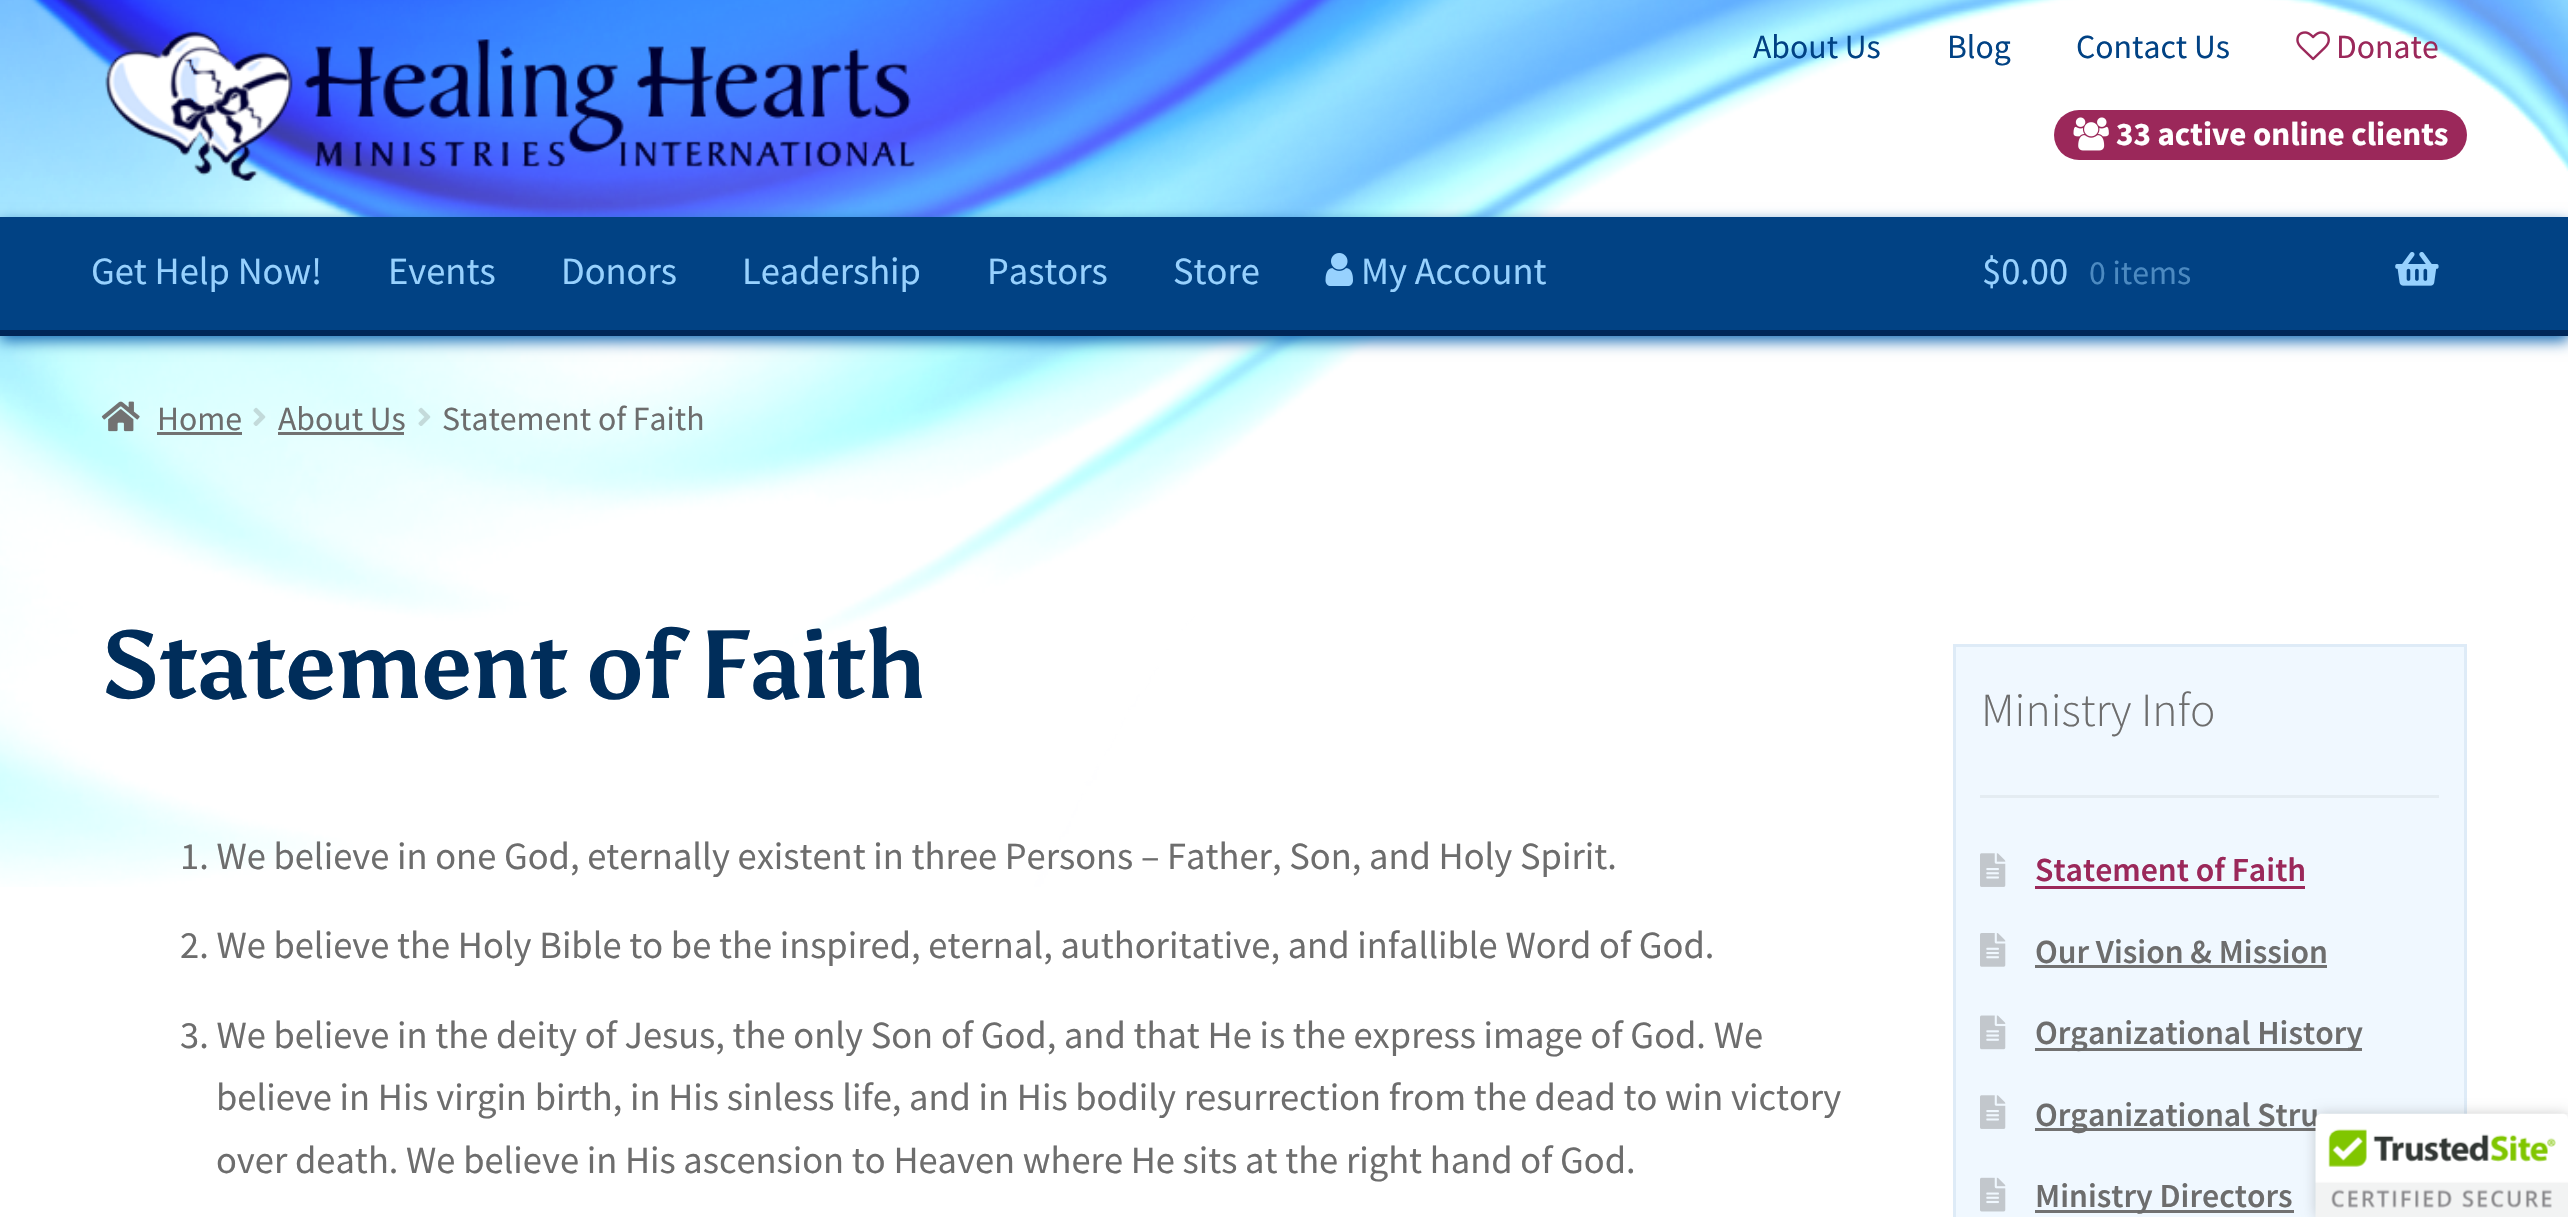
#include "include/core/SkBlurTypes.h"
#include "include/core/SkCanvas.h"
#include "include/core/SkData.h"
#include "include/core/SkFont.h"
#include "include/core/SkFontMgr.h"
#include "include/core/SkImage.h"
#include "include/core/SkMaskFilter.h"
#include "include/core/SkPaint.h"
#include "include/core/SkPathBuilder.h"
#include "include/core/SkTextBlob.h"
#include "include/effects/SkDashPathEffect.h"
#include "include/effects/SkGradientShader.h"
#include "include/utils/SkParsePath.h"

extern sk_sp<SkFontMgr> fontMgr;

void draw(SkCanvas* canvas) {
    SkPaint p;
    p.setAntiAlias(true);
    auto font = [&](const char* family, int weight, float size, bool italic = false) {
        SkFontStyle style(weight, SkFontStyle::kNormal_Width,
            italic ? SkFontStyle::kItalic_Slant : SkFontStyle::kUpright_Slant);
        SkFont result(fontMgr->matchFamilyStyle(family, style), size);
        result.setSubpixel(true);
        return result;
    };
    auto drawTracked = [&](const char* s, float x, float y, const SkFont& font, const SkPaint& ink, float letter, float word) {
        std::vector<SkGlyphID> glyphs(font.countText(s, strlen(s), SkTextEncoding::kUTF8));
        std::vector<float> xs(glyphs.size());
        font.textToGlyphs(s, strlen(s), SkTextEncoding::kUTF8, glyphs);
        font.getXPos(glyphs, xs, x);
        float extra = 0;
        for (size_t i = 0; i < glyphs.size(); i++) {
            xs[i] += extra;
            extra += letter + word * (glyphs[i] == font.unicharToGlyph(' '));
        }
        canvas->drawTextBlob(SkTextBlob::MakeFromPosHGlyphs(glyphs, xs, y, font), 0, 0, ink);
    };
    auto drawPhoto = [&](const char* path, float l, float t, float r, float b) {
        auto image = SkImages::DeferredFromEncodedData(SkData::MakeFromFileName(path));
        canvas->drawImageRect(image, SkRect::MakeLTRB(l, t, r, b), SkSamplingOptions());
    };
    canvas->clear(0xFFFFFFFF);
    drawPhoto("media/1.png", 0, 0, 2568, 887);
    drawPhoto("media/2.png", 105, 31, 915, 181);
    auto font1 = font("Source Sans Pro", 400, 33.75f);
    p.setColor(0xFF014284);
    {
        const struct { const char* s; float x, y; } items[] = {
            {"About Us", 1753, 58},
            {"Blog", 1947, 58},
            {"Contact Us", 2076, 58},
        };
        for (auto [s, x, y] : items) {
            canvas->drawString(s, x, y, font1, p);
        }
    }
    drawPhoto("media/3.png", 2296, 31, 2330, 61);
    p.setColor(0xFF9B285A);
    canvas->drawString("Donate", 2336, 58, font1, p);
    canvas->drawRoundRect(SkRect::MakeLTRB(2054, 110, 2467, 160), 25, 25, p);
    drawPhoto("media/4.png", 2073, 117, 2109, 151);
    auto font2 = font("Source Sans Pro", 700, 33);
    p.setColor(0xFFFFFFFF);
    canvas->drawString("33 active online clients", 2116, 145, font2, p);
    p.setColor(0xFF1469B4);
    p.setMaskFilter(SkMaskFilter::MakeBlur(kNormal_SkBlurStyle, 7));
    canvas->drawRect(SkRect::MakeLTRB(0, 223, 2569, 341), p);
    p.setMaskFilter(nullptr);
    p.setColor(0xFF014284);
    canvas->drawRect(SkRect::MakeLTRB(0, 217, 2568, 330), p);
    p.setColor(0xFF002658);
    canvas->drawRect(SkRect::MakeLTRB(0, 330, 2568, 336), p);
    auto font3 = font("Source Sans Pro", 400, 38.5f);
    p.setColor(0xFF97D1FE);
    {
        const struct { const char* s; float x, y; } items[] = {
            {"Get Help Now!", 91, 284},
            {"Events", 388, 284},
            {"Donors", 561, 284},
            {"Leadership", 742, 284},
            {"Pastors", 987, 284},
            {"Store", 1173, 284},
        };
        for (auto [s, x, y] : items) {
            canvas->drawString(s, x, y, font3, p);
        }
    }
    drawPhoto("media/5.png", 1325, 253, 1353, 286);
    canvas->drawString("My Account", 1361, 284, font3, p);
    canvas->drawString("$0.00", 1982, 284, font3, p);
    p.setColor(0xFF4C8AC1);
    canvas->drawString("0 items", 2089, 284, font1, p);
    drawPhoto("media/6.png", 2395, 252, 2439, 286);
    drawPhoto("media/7.png", 101, 401, 140, 432);
    p.setColor(0xFF6D6D6D);
    canvas->drawString("Home", 157, 430, font1, p);
    p.setColor(0xFF727272);
    canvas->drawRect(SkRect::MakeLTRB(157, 432, 242, 435), p);
    drawPhoto("media/8.png", 253, 407, 266, 426);
    p.setColor(0xFF6D6D6D);
    canvas->drawString("About Us", 278, 430, font1, p);
    p.setColor(0xFF727272);
    canvas->drawRect(SkRect::MakeLTRB(278, 432, 404, 435), p);
    drawPhoto("media/9.png", 418, 407, 431, 426);
    p.setColor(0xFF6D6D6D);
    canvas->drawString("Statement of Faith", 442, 430, font1, p);
    auto font4 = font("Asul", 700, 96.25f);
    p.setColor(0xFF002D5A);
    drawTracked("Statement of Faith", 101, 698, font4, p, -2.75f, 0);
    p.setColor(0xFF6D6D6D);
    {
        const struct { const char* s; float x, y; } items[] = {
            {"1. We believe in one God, eternally existent in three Persons – Father, Son, and Holy Spirit.", 180, 869},
            {"2. We believe the Holy Bible to be the inspired, eternal, authoritative, and infallible Word of God.", 180, 958},
            {"3. We believe in the deity of Jesus, the only Son of God, and that He is the express image of God. We", 180, 1048},
            {"believe in His virgin birth, in His sinless life, and in His bodily resurrection from the dead to win victory", 216, 1110},
            {"over death. We believe in His ascension to Heaven where He sits at the right hand of God.", 216, 1173},
        };
        for (auto [s, x, y] : items) {
            canvas->drawString(s, x, y, font3, p);
        }
    }
    p.setColor(0xFFF0F8FF);
    canvas->drawRect(SkRect::MakeLTRB(1954.5f, 645.5f, 2465.5f, 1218.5f), p);
    p.setStyle(SkPaint::kStroke_Style);
    p.setStrokeWidth(3);
    p.setColor(0xFFDEEBF7);
    canvas->drawRect(SkRect::MakeLTRB(1954.5f, 645.5f, 2465.5f, 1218.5f), p);
    p.setStyle(SkPaint::kFill_Style);
    p.setColor(0xFFE4ECF2);
    canvas->drawRect(SkRect::MakeLTRB(1980, 795, 2439, 798), p);
    auto font5 = font("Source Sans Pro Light", 300, 47.5f);
    p.setColor(0xFF6D6D6D);
    canvas->drawString("Ministry Info", 1981, 726, font5, p);
    drawPhoto("media/10.png", 1980, 853, 2006, 887);
    auto font6 = font("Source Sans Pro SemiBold", 600, 33.75f);
    p.setColor(0xFF9B285A);
    canvas->drawString("Statement of Faith", 2035, 881, font6, p);
    canvas->drawRect(SkRect::MakeLTRB(2035, 886, 2305, 889), p);
    drawPhoto("media/11.png", 1980, 933, 2006, 967);
    p.setColor(0xFF6D6D6D);
    canvas->drawString("Our Vision & Mission", 2035, 963, font6, p);
    p.setColor(0xFF727272);
    canvas->drawRect(SkRect::MakeLTRB(2035, 965, 2327, 968), p);
    drawPhoto("media/12.png", 1980, 1015, 2006, 1050);
    canvas->drawRect(SkRect::MakeLTRB(2035, 1048, 2362, 1051), p);
    p.setColor(0xFF6D6D6D);
    canvas->drawString("Organizational History", 2035, 1044, font6, p);
    drawPhoto("media/10.png", 1980, 1095, 2006, 1129);
    p.setColor(0xFF727272);
    canvas->drawRect(SkRect::MakeLTRB(2035, 1128, 2316, 1131), p);
    p.setColor(0xFF6D6D6D);
    canvas->drawString("Organizational Stru", 2035, 1126, font6, p);
    drawPhoto("media/13.png", 1980, 1177, 2006, 1212);
    p.setColor(0xFF727272);
    canvas->drawRect(SkRect::MakeLTRB(2035, 1210, 2294, 1213), p);
    p.setColor(0xFF6D6D6D);
    canvas->drawString("Ministry Directors", 2035, 1207, font6, p);
    p.setColor(0x33000000);
    p.setMaskFilter(SkMaskFilter::MakeBlur(kNormal_SkBlurStyle, 7));
    canvas->drawRoundRect(SkRect::MakeLTRB(2316, 1114, 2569, 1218), 6, 6, p);
    p.setMaskFilter(nullptr);
    p.setColor(0xFFFFFFFF);
    canvas->drawPath(SkPathBuilder().moveTo(2322, 1114).lineTo(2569, 1114).lineTo(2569, 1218).lineTo(2316, 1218).lineTo(2316, 1120).cubicTo(2316, 1116.5f, 2318.5f, 1114, 2322, 1114).close().detach(), p);
    drawPhoto("media/14.png", 2315, 1113, 2568, 1217);
}
